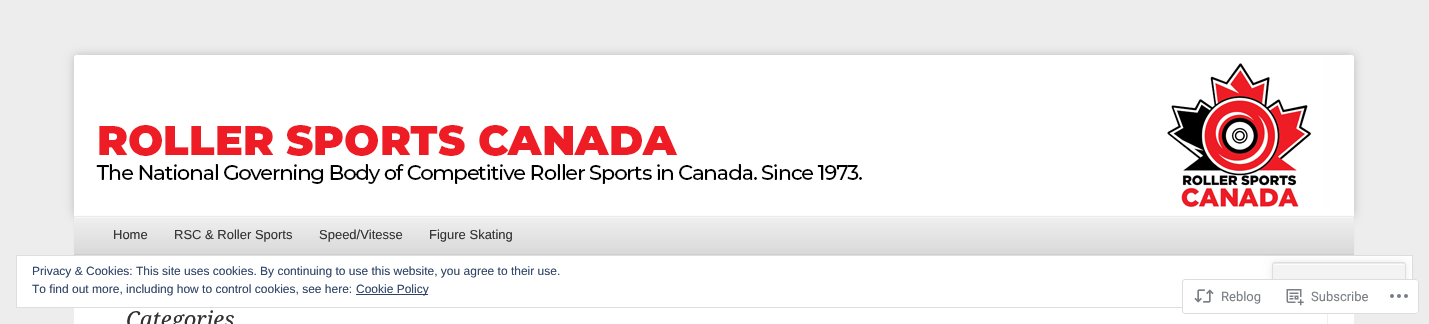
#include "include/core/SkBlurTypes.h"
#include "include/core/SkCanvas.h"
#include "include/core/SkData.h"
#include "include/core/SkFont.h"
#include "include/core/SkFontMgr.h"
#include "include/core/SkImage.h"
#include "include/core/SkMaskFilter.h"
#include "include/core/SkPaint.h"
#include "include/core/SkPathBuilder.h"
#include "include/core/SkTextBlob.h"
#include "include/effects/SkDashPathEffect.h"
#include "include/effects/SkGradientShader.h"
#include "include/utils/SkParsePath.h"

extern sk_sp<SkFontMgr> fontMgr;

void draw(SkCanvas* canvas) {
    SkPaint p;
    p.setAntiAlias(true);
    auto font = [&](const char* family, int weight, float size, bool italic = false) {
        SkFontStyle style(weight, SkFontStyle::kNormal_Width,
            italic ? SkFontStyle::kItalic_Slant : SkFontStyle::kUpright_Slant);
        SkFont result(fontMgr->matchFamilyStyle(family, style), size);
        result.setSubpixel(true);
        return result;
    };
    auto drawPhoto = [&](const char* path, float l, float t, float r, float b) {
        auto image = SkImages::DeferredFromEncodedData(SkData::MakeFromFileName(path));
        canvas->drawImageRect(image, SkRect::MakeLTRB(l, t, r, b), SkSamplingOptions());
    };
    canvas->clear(0xFFEDEDED);
    p.setColor(0xFFFFFFFF);
    canvas->drawPath(SkPathBuilder().moveTo(77, 55).lineTo(1351, 55).cubicTo(1352.5f, 55, 1354, 56.5f, 1354, 58).lineTo(1354, 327).lineTo(74, 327).lineTo(74, 58).cubicTo(74, 56.5f, 75.5f, 55, 77, 55).close().detach(), p);
    canvas->save();
    canvas->clipPath(SkPathBuilder(SkPathFillType::kEvenOdd).moveTo(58, 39).lineTo(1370, 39).lineTo(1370, 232).lineTo(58, 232).close().moveTo(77, 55).lineTo(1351, 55).cubicTo(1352.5f, 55, 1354, 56.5f, 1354, 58).lineTo(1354, 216).lineTo(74, 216).lineTo(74, 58).cubicTo(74, 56.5f, 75.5f, 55, 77, 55).close().detach(), true);
    p.setColor(0x33000000);
    p.setMaskFilter(SkMaskFilter::MakeBlur(kNormal_SkBlurStyle, 5));
    canvas->drawRoundRect(SkRect::MakeLTRB(74, 55, 1354, 216), 3, 3, p);
    p.setMaskFilter(nullptr);
    canvas->restore();
    drawPhoto("media/1.png", 74, 55, 1354, 207);
    p.setColor(0x1A000000);
    p.setMaskFilter(SkMaskFilter::MakeBlur(kNormal_SkBlurStyle, 0.5f));
    canvas->drawRoundRect(SkRect::MakeLTRB(74, 216, 1354, 255), 3, 3, p);
    p.setMaskFilter(nullptr);
    p.setColor(0xFFF0F0F0);
    canvas->drawPath(SkPathBuilder().moveTo(77, 216).lineTo(1351, 216).cubicTo(1352.5f, 216, 1354, 217.5f, 1354, 219).lineTo(1354, 255).lineTo(74, 255).lineTo(74, 219).cubicTo(74, 217.5f, 75.5f, 216, 77, 216).close().detach(), p);
    {
        const SkColor colors[] = {0xCCF0F0F0, 0xCCD2D2D2};
        const float stops[] = {0, 1};
        const SkPoint ends[] = {{714, 216}, {714, 255}};
        p.setShader(SkGradientShader::MakeLinear(ends, colors, stops, 2, SkTileMode::kClamp));
        p.setAlpha(255);
    }
    canvas->drawPath(SkPathBuilder().moveTo(77, 216).lineTo(1351, 216).cubicTo(1352.5f, 216, 1354, 217.5f, 1354, 219).lineTo(1354, 255).lineTo(74, 255).lineTo(74, 219).cubicTo(74, 217.5f, 75.5f, 216, 77, 216).close().detach(), p);
    p.setShader(nullptr);
    p.setColor(0xFFCECECE);
    canvas->drawRect(SkRect::MakeLTRB(74, 254, 1354, 255), p);
    p.setColor(0xFFF8F8F8);
    canvas->drawPath(SkPathBuilder().moveTo(77, 218).lineTo(1351, 218).cubicTo(1353, 218, 1354, 219, 1354, 221).cubicTo(1354, 219, 1354, 216, 1351, 216).lineTo(77, 216).cubicTo(74, 216, 74, 219, 74, 221).cubicTo(74, 219, 75, 218, 77, 218).close().detach(), p);
    p.setColor(0xCCE6E6E6);
    canvas->drawPath(SkPathBuilder().moveTo(77, 217).lineTo(1351, 217).cubicTo(1353, 217, 1354, 218, 1354, 220).lineTo(1354, 219).cubicTo(1354, 217, 1353, 216, 1351, 216).lineTo(77, 216).cubicTo(75, 216, 74, 217, 74, 219).lineTo(74, 220).cubicTo(74, 218, 75, 217, 77, 217).close().detach(), p);
    auto font1 = font("Liberation Sans", 400, 13);
    p.setColor(0xFF323232);
    {
        const struct { const char* s; float x, y; } items[] = {
            {"Home", 113, 239},
            {"RSC & Roller Sports", 174, 239},
            {"Speed/Vitesse", 319, 239},
            {"Figure Skating", 429, 239},
        };
        for (auto [s, x, y] : items) {
            canvas->drawString(s, x, y, font1, p);
        }
    }
    auto font2 = font("Droid Serif", 400, 22, true);
    canvas->drawString("Categories", 126, 327, font2, p);
    canvas->save();
    canvas->clipRect(SkRect::MakeLTRB(407, 281, 1328, 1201));
    p.setColor(0xFFEFEFEF);
    canvas->drawPath(SkPathBuilder(SkPathFillType::kEvenOdd).moveTo(308, 182).lineTo(1427, 182).lineTo(1427, 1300).lineTo(308, 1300).close().moveTo(406, 280).lineTo(1327, 280).lineTo(1327, 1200).lineTo(406, 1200).close().detach(), p);
    canvas->restore();
    p.setColor(0xFFFFFFFF);
    canvas->drawRect(SkRect::MakeLTRB(16.5f, 255.5f, 1412.5f, 307.5f), p);
    p.setStyle(SkPaint::kStroke_Style);
    p.setStrokeWidth(1);
    p.setColor(0xFFDEDEDE);
    canvas->drawRect(SkRect::MakeLTRB(16.5f, 255.5f, 1412.5f, 307.5f), p);
    auto font3 = font("Liberation Sans", 400, 12);
    p.setStyle(SkPaint::kFill_Style);
    p.setColor(0xFF2E4467);
    canvas->drawString("Privacy & Cookies: This site uses cookies. By continuing to use this website, you agree to their use.", 32, 275, font3, p);
    p.setColor(0x17000000);
    p.setMaskFilter(SkMaskFilter::MakeBlur(kNormal_SkBlurStyle, 3.5f));
    canvas->drawRoundRect(SkRect::MakeLTRB(1272, 262, 1406, 301), 3, 3, p);
    p.setMaskFilter(nullptr);
    p.setColor(0xFFF3F3F3);
    canvas->drawRoundRect(SkRect::MakeLTRB(1272, 262, 1406, 301), 3, 3, p);
    p.setColor(0xFFD0D0D0);
    canvas->drawPath(SkPathBuilder().moveTo(1273, 297).cubicTo(1273, 298, 1273, 300, 1275, 300).lineTo(1403, 300).cubicTo(1405, 300, 1405, 298, 1405, 297).cubicTo(1405, 298, 1404, 299, 1403, 299).lineTo(1275, 299).cubicTo(1274, 299, 1273, 298, 1273, 297).close().detach(), p);
    p.setColor(0xFFFDFDFD);
    canvas->drawPath(SkPathBuilder().moveTo(1275, 265).lineTo(1403, 265).cubicTo(1404, 265, 1405, 266, 1405, 267).lineTo(1405, 265).cubicTo(1405, 264, 1404, 263, 1403, 263).lineTo(1275, 263).cubicTo(1274, 263, 1273, 264, 1273, 265).lineTo(1273, 267).cubicTo(1273, 266, 1274, 265, 1275, 265).close().detach(), p);
    p.setColor(0xFFEBEBEB);
    canvas->drawPath(SkPathBuilder().moveTo(1275, 264).lineTo(1403, 264).cubicTo(1404, 264, 1405, 265, 1405, 266).cubicTo(1405, 265, 1405, 263, 1403, 263).lineTo(1275, 263).cubicTo(1273, 263, 1273, 265, 1273, 266).cubicTo(1273, 265, 1274, 264, 1275, 264).close().detach(), p);
    p.setStyle(SkPaint::kStroke_Style);
    p.setColor(0xFFDEDEDE);
    canvas->drawRoundRect(SkRect::MakeLTRB(1272.5f, 262.5f, 1405.5f, 300.5f), 2.5f, 2.5f, p);
    p.setStyle(SkPaint::kFill_Style);
    p.setColor(0xFF2E4467);
    canvas->drawString("To find out more, including how to control cookies, see here:", 32, 293, font3, p);
    canvas->drawRect(SkRect::MakeLTRB(356, 294, 428, 295), p);
    canvas->drawString("Cookie Policy", 356, 293, font3, p);
    p.setColor(0xFAFFFFFF);
    canvas->drawRoundRect(SkRect::MakeLTRB(1182, 279, 1419, 314), 3, 3, p);
    p.setStyle(SkPaint::kStroke_Style);
    p.setColor(0xFADCDCDE);
    canvas->drawRoundRect(SkRect::MakeLTRB(1182.5f, 279.5f, 1418.5f, 313.5f), 2.5f, 2.5f, p);
    drawPhoto("media/2.png", 1194, 289, 1214, 303);
    auto font4 = font("Roboto", 400, 13);
    p.setStyle(SkPaint::kFill_Style);
    p.setColor(0xFF7B7F85);
    canvas->drawString("Reblog", 1221, 301, font4, p);
    drawPhoto("media/3.png", 1286, 289, 1304, 306);
    canvas->drawString("Subscribe", 1311, 301, font4, p);
    drawPhoto("media/4.png", 1390, 294, 1408, 298);
}
